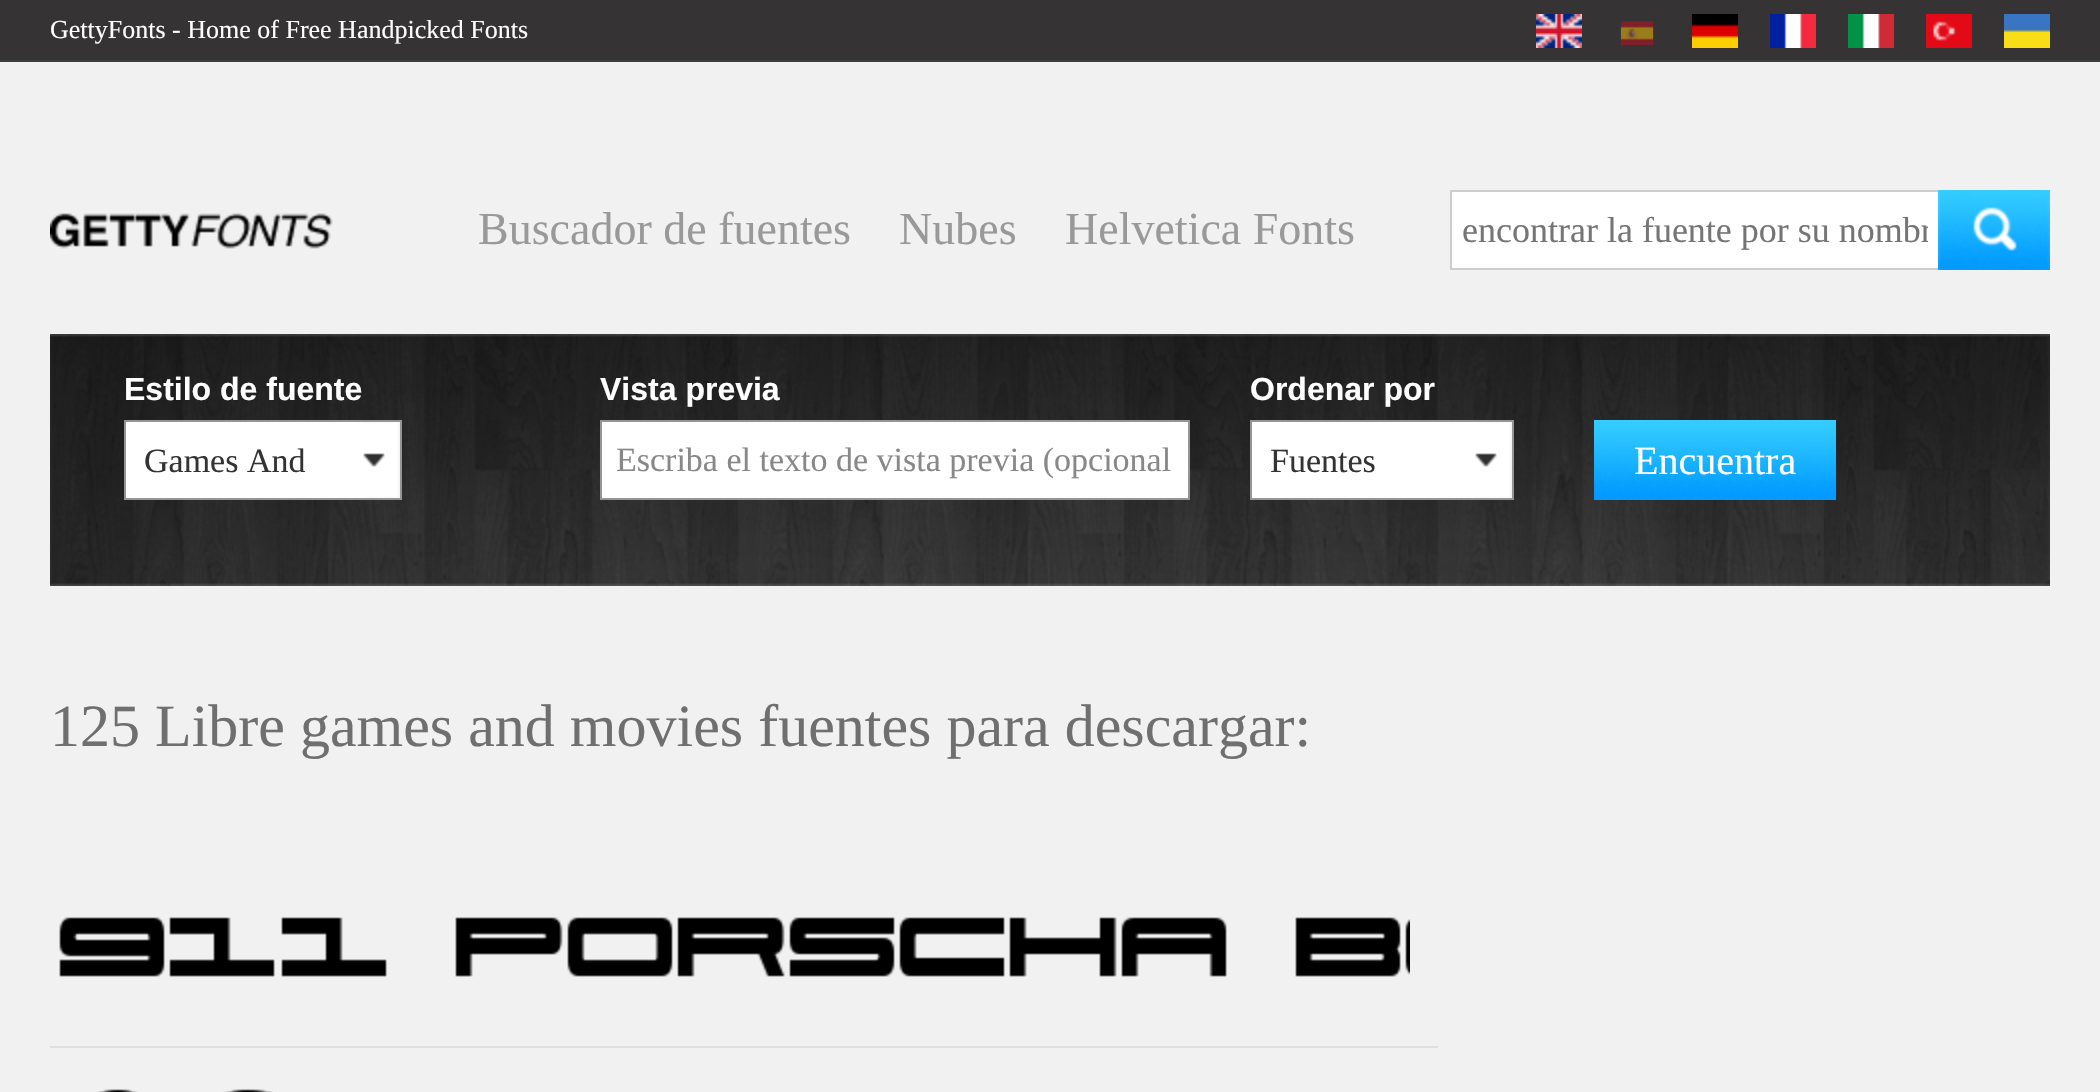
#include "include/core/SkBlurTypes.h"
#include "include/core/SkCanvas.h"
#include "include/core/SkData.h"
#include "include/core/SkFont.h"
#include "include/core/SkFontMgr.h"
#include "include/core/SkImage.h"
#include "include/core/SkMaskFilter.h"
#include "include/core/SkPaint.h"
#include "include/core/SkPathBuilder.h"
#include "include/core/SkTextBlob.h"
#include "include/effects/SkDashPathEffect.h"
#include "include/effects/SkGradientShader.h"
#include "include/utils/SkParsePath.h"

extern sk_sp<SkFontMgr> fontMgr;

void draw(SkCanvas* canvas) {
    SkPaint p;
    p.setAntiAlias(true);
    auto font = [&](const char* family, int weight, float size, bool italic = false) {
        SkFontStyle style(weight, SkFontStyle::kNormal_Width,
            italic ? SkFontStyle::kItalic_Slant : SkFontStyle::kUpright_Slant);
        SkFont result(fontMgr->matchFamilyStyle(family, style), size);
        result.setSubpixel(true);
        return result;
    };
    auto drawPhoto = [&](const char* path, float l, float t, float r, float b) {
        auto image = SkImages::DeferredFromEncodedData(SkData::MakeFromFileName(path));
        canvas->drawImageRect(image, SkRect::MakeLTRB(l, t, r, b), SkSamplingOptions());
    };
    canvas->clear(0xFFF1F1F1);
    p.setColor(0xFF353333);
    canvas->drawRect(SkRect::MakeLTRB(0, 0, 2100, 60), p);
    p.setColor(0xFF3C3D40);
    canvas->drawRect(SkRect::MakeLTRB(0, 60, 2100, 62), p);
    auto font1 = font("Liberation Serif", 400, 26);
    p.setColor(0xFFFFFFFF);
    canvas->drawString("GettyFonts - Home of Free Handpicked Fonts", 50, 38, font1, p);
    drawPhoto("media/1.png", 1536, 14, 1582, 48);
    drawPhoto("media/2.png", 1620, 21, 1654, 45);
    drawPhoto("media/3.png", 1692, 14, 1738, 48);
    drawPhoto("media/4.png", 1770, 14, 1816, 48);
    drawPhoto("media/5.png", 1848, 14, 1894, 48);
    drawPhoto("media/6.png", 1926, 14, 1972, 48);
    drawPhoto("media/7.png", 2004, 14, 2050, 48);
    drawPhoto("media/8.png", 50, 213, 333, 249);
    auto font2 = font("Liberation Serif", 400, 46);
    p.setColor(0xFF999999);
    {
        const struct { const char* s; float x, y; } items[] = {
            {"Buscador de fuentes", 478, 244},
            {"Nubes", 899, 244},
            {"Helvetica Fonts", 1065, 244},
        };
        for (auto [s, x, y] : items) {
            canvas->drawString(s, x, y, font2, p);
        }
    }
    {
        const struct { float l, t, r, b; SkColor color; } items[] = {
            {1452, 192, 1938, 268, 0xFFFFFFFF},
            {1450, 190, 1938, 192, 0xFFCDCDCD},
            {1450, 268, 1938, 270, 0xFFCDCDCD},
            {1450, 190, 1452, 270, 0xFFCDCDCD},
        };
        for (auto [l, t, r, b, color] : items) {
            p.setColor(color);
            canvas->drawRect(SkRect::MakeLTRB(l, t, r, b), p);
        }
    }
    canvas->save();
    canvas->clipRect(SkRect::MakeLTRB(1462, 210, 1928, 252));
    auto font3 = font("Liberation Serif", 400, 36);
    p.setColor(0xFF757575);
    canvas->drawString("encontrar la fuente por su nombr", 1462, 242, font3, p);
    canvas->restore();
    drawPhoto("media/9.png", 1938, 190, 2050, 270);
    drawPhoto("media/10.png", 50, 334, 2050, 586);
    auto font4 = font("Liberation Sans", 700, 32);
    p.setColor(0xFFFFFFFF);
    canvas->drawString("Estilo de fuente", 124, 400, font4, p);
    canvas->drawRect(SkRect::MakeLTRB(126, 422, 363, 498), p);
    p.setStyle(SkPaint::kStroke_Style);
    p.setStrokeWidth(2);
    p.setColor(0xFF959595);
    canvas->drawRect(SkRect::MakeLTRB(125, 421, 401, 499), p);
    auto font5 = font("Liberation Serif", 400, 34);
    p.setStyle(SkPaint::kFill_Style);
    p.setColor(0xFF333333);
    canvas->drawString("Games And", 144, 472, font5, p);
    drawPhoto("media/11.png", 363, 422, 400, 498);
    p.setColor(0xFFFFFFFF);
    canvas->drawString("Vista previa", 600, 400, font4, p);
    canvas->drawRect(SkRect::MakeLTRB(601, 421, 1189, 499), p);
    p.setStyle(SkPaint::kStroke_Style);
    p.setColor(0xFF959595);
    canvas->drawRect(SkRect::MakeLTRB(601, 421, 1189, 499), p);
    p.setStyle(SkPaint::kFill_Style);
    p.setColor(0xFF888888);
    canvas->drawString("Escriba el texto de vista previa (opcional", 616, 471, font5, p);
    p.setColor(0xFFFFFFFF);
    canvas->drawString("Ordenar por", 1250, 400, font4, p);
    canvas->drawRect(SkRect::MakeLTRB(1252, 422, 1475, 498), p);
    p.setStyle(SkPaint::kStroke_Style);
    p.setColor(0xFF959595);
    canvas->drawRect(SkRect::MakeLTRB(1251, 421, 1513, 499), p);
    p.setStyle(SkPaint::kFill_Style);
    p.setColor(0xFF333333);
    canvas->drawString("Fuentes", 1270, 472, font5, p);
    drawPhoto("media/11.png", 1475, 422, 1512, 498);
    drawPhoto("media/12.png", 1594, 420, 1836, 500);
    auto font6 = font("Liberation Serif", 400, 40);
    p.setColor(0xFFFFFFFF);
    canvas->drawString("Encuentra", 1634, 474, font6, p);
    auto font7 = font("Liberation Serif", 400, 60);
    p.setColor(0xFF6F6F6F);
    canvas->drawString("125 Libre games and movies fuentes para descargar:", 50, 746, font7, p);
    p.setColor(0xFFDEDEDE);
    canvas->drawRect(SkRect::MakeLTRB(50, 1046, 1438, 1048), p);
    drawPhoto("media/13.png", 59, 917, 1410, 977);
    drawPhoto("media/14.png", 97, 1089, 273, 1092);
}
